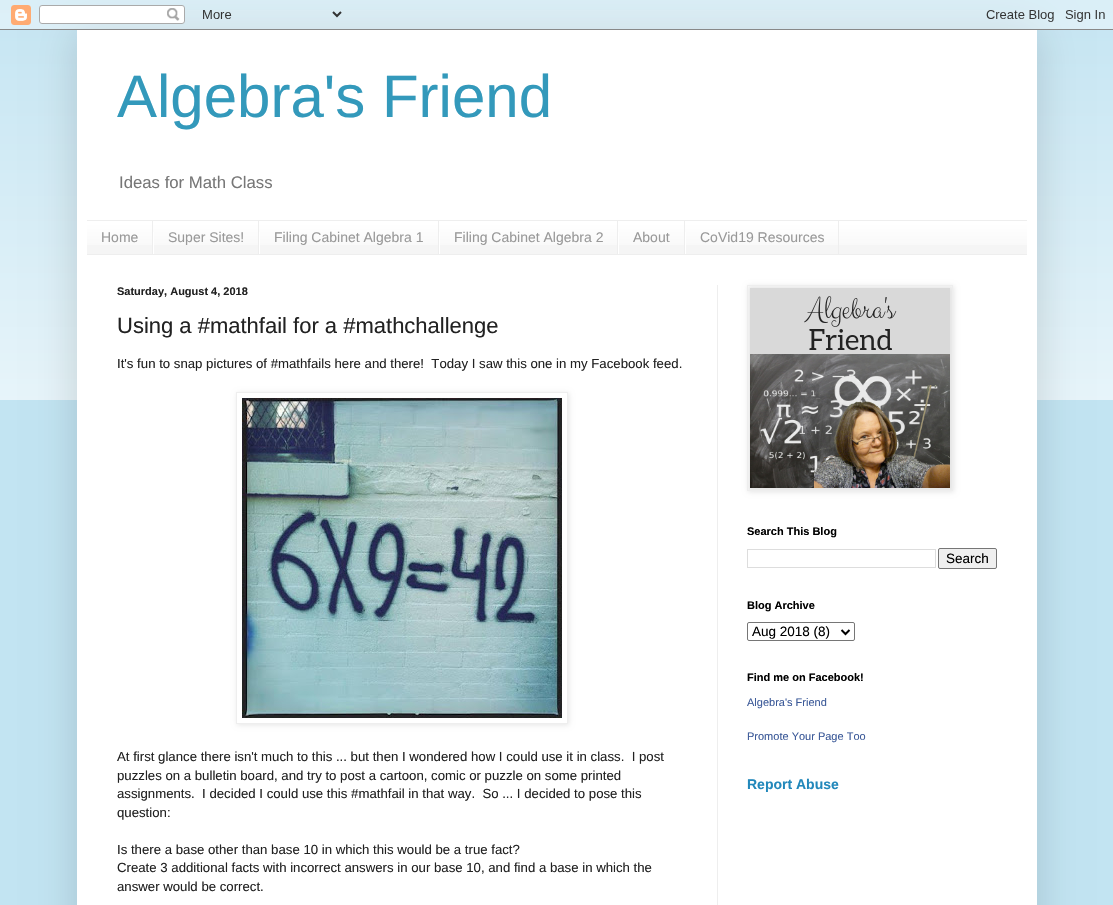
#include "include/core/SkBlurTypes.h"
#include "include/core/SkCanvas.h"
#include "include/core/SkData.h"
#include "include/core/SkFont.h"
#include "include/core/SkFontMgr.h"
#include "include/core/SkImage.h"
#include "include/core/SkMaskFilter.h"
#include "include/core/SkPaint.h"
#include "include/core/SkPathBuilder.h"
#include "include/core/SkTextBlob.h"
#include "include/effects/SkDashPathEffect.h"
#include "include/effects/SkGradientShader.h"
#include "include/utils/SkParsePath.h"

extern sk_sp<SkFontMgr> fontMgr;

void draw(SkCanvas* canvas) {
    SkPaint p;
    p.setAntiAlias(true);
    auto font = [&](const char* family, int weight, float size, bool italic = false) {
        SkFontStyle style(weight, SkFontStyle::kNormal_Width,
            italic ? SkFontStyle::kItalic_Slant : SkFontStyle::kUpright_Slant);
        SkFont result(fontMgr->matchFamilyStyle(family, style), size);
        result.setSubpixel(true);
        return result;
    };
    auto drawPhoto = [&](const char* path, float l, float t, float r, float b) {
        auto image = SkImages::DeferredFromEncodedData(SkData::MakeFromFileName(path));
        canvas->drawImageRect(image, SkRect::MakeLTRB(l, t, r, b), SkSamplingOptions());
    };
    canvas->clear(0xFFC2E4F2);
    drawPhoto("media/2.png", 0, 10, 1113, 400);
    p.setColor(0x26000000);
    p.setMaskFilter(SkMaskFilter::MakeBlur(kNormal_SkBlurStyle, 20));
    canvas->drawRect(SkRect::MakeLTRB(77, 30, 1037, 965), p);
    p.setMaskFilter(nullptr);
    drawPhoto("media/1.png", 0, 0, 1113, 30);
    p.setColor(0xFFFFFFFF);
    canvas->drawRect(SkRect::MakeLTRB(77, 30, 1037, 905), p);
    auto font1 = font("Liberation Sans", 400, 60);
    p.setColor(0xFF3399BB);
    canvas->drawString("Algebra's Friend", 117, 117, font1, p);
    auto font2 = font("Liberation Sans", 400, 16.75f);
    p.setColor(0xFF777777);
    canvas->drawString("Ideas for Math Class", 119, 188, font2, p);
    p.setColor(0xFFF5F5F5);
    canvas->drawRect(SkRect::MakeLTRB(87, 222, 1027, 254), p);
    drawPhoto("media/3.png", 87, 221, 1027, 245);
    {
        const struct { float l, t, r, b; SkColor color; } items[] = {
            {87, 220, 1027, 221, 0xFFEEEEEE},
            {87, 254, 1027, 255, 0xFFEEEEEE},
            {152, 221, 153, 254, 0xFFEEEEEE},
        };
        for (auto [l, t, r, b, color] : items) {
            p.setColor(color);
            canvas->drawRect(SkRect::MakeLTRB(l, t, r, b), p);
        }
    }
    auto font3 = font("Liberation Sans", 400, 14);
    p.setColor(0xFF999999);
    canvas->drawString("Home", 101, 242, font3, p);
    p.setColor(0xFFEEEEEE);
    canvas->drawRect(SkRect::MakeLTRB(258, 221, 259, 254), p);
    p.setColor(0xFFFFFFFF);
    canvas->drawRect(SkRect::MakeLTRB(153, 232, 154, 254), p);
    p.setColor(0xFF999999);
    canvas->drawString("Super Sites!", 168, 242, font3, p);
    p.setColor(0xFFEEEEEE);
    canvas->drawRect(SkRect::MakeLTRB(438, 221, 439, 254), p);
    p.setColor(0xFFFFFFFF);
    canvas->drawRect(SkRect::MakeLTRB(259, 232, 260, 254), p);
    p.setColor(0xFF999999);
    canvas->drawString("Filing Cabinet Algebra 1", 274, 242, font3, p);
    p.setColor(0xFFEEEEEE);
    canvas->drawRect(SkRect::MakeLTRB(617, 221, 618, 254), p);
    p.setColor(0xFFFFFFFF);
    canvas->drawRect(SkRect::MakeLTRB(439, 232, 440, 254), p);
    p.setColor(0xFF999999);
    canvas->drawString("Filing Cabinet Algebra 2", 454, 242, font3, p);
    p.setColor(0xFFEEEEEE);
    canvas->drawRect(SkRect::MakeLTRB(684, 221, 685, 254), p);
    p.setColor(0xFFFFFFFF);
    canvas->drawRect(SkRect::MakeLTRB(618, 232, 619, 254), p);
    p.setColor(0xFF999999);
    canvas->drawString("About", 633, 242, font3, p);
    p.setColor(0xFFEEEEEE);
    canvas->drawRect(SkRect::MakeLTRB(838, 221, 839, 254), p);
    p.setColor(0xFFFFFFFF);
    canvas->drawRect(SkRect::MakeLTRB(685, 232, 686, 254), p);
    p.setColor(0xFF999999);
    canvas->drawString("CoVid19 Resources", 700, 242, font3, p);
    p.setColor(0xFFEEEEEE);
    canvas->drawRect(SkRect::MakeLTRB(717, 285, 718, 905), p);
    auto font4 = font("Liberation Sans", 700, 11);
    p.setColor(0xFF222222);
    canvas->drawString("Saturday, August 4, 2018", 117, 295, font4, p);
    auto font5 = font("Liberation Sans", 400, 22);
    canvas->drawString("Using a #mathfail for a #mathchallenge", 117, 333, font5, p);
    auto font6 = font("Liberation Sans", 400, 13.2f);
    canvas->drawString("It's fun to snap pictures of #mathfails here and there!  Today I saw this one in my Facebook feed.", 117, 368, font6, p);
    canvas->save();
    canvas->clipPath(SkPathBuilder(SkPathFillType::kEvenOdd).moveTo(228, 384).lineTo(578, 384).lineTo(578, 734).lineTo(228, 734).close().moveTo(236, 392).lineTo(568, 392).lineTo(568, 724).lineTo(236, 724).close().detach(), true);
    p.setColor(0x1A000000);
    p.setMaskFilter(SkMaskFilter::MakeBlur(kNormal_SkBlurStyle, 2.5f));
    canvas->drawRect(SkRect::MakeLTRB(237, 393, 569, 725), p);
    p.setMaskFilter(nullptr);
    canvas->restore();
    p.setStyle(SkPaint::kStroke_Style);
    p.setStrokeWidth(1);
    p.setColor(0xFFEEEEEE);
    canvas->drawRect(SkRect::MakeLTRB(236.5f, 392.5f, 567.5f, 723.5f), p);
    drawPhoto("media/4.png", 242, 398, 562, 718);
    p.setStyle(SkPaint::kFill_Style);
    p.setColor(0xFF222222);
    {
        const struct { const char* s; float x, y; } items[] = {
            {"At first glance there isn't much to this ... but then I wondered how I could use it in class.  I post", 117, 761},
            {"puzzles on a bulletin board, and try to post a cartoon, comic or puzzle on some printed", 117, 780},
            {"assignments.  I decided I could use this #mathfail in that way.  So ... I decided to pose this", 117, 798},
            {"question:", 117, 817},
            {"Is there a base other than base 10 in which this would be a true fact?", 117, 854},
            {"Create 3 additional facts with incorrect answers in our base 10, and find a base in which the", 117, 872},
            {"answer would be correct.", 117, 891},
        };
        for (auto [s, x, y] : items) {
            canvas->drawString(s, x, y, font6, p);
        }
    }
    p.setColor(0x1A000000);
    p.setMaskFilter(SkMaskFilter::MakeBlur(kNormal_SkBlurStyle, 2.5f));
    canvas->drawRect(SkRect::MakeLTRB(748, 286, 954, 492), p);
    p.setMaskFilter(nullptr);
    p.setStyle(SkPaint::kStroke_Style);
    p.setColor(0xFFEEEEEE);
    canvas->drawRect(SkRect::MakeLTRB(747.5f, 285.5f, 952.5f, 490.5f), p);
    drawPhoto("media/5.png", 750, 288, 950, 488);
    p.setStyle(SkPaint::kFill_Style);
    p.setColor(0xFF000000);
    canvas->drawString("Search This Blog", 747, 535, font4, p);
    p.setStyle(SkPaint::kStroke_Style);
    p.setColor(0xFFDDDDDD);
    canvas->drawRect(SkRect::MakeLTRB(747.5f, 549.5f, 935.5f, 567.5f), p);
    p.setStyle(SkPaint::kFill_Style);
    p.setColor(0xFFEFEFEF);
    canvas->drawRoundRect(SkRect::MakeLTRB(938.5f, 548.5f, 996.5f, 568.5f), 1.5f, 1.5f, p);
    p.setStyle(SkPaint::kStroke_Style);
    p.setColor(0xFF767676);
    canvas->drawRoundRect(SkRect::MakeLTRB(938.5f, 548.5f, 996.5f, 568.5f), 1.5f, 1.5f, p);
    auto font7 = font("Liberation Sans", 400, 13.5f);
    p.setStyle(SkPaint::kFill_Style);
    p.setColor(0xFF000000);
    canvas->drawString("Search", 946, 563, font7, p);
    canvas->drawString("Blog Archive", 747, 609, font4, p);
    p.setStyle(SkPaint::kStroke_Style);
    p.setColor(0xFF767676);
    canvas->drawRoundRect(SkRect::MakeLTRB(747.5f, 622.5f, 854.5f, 640.5f), 1.5f, 1.5f, p);
    p.setStrokeWidth(2);
    p.setColor(0xFF000000);
    canvas->drawPath(SkPathBuilder().moveTo(841.5f, 630).lineTo(845.5f, 634).lineTo(849.5f, 630).detach(), p);
    p.setStyle(SkPaint::kFill_Style);
    canvas->drawString("Aug 2018 (8)", 752, 636, font7, p);
    canvas->drawString("Find me on Facebook!", 747, 681, font4, p);
    auto font8 = font("Liberation Sans", 400, 11);
    p.setColor(0xFF3B5998);
    canvas->drawString("Algebra's Friend", 747, 706, font8, p);
    canvas->drawString("Promote Your Page Too", 747, 740, font8, p);
    auto font9 = font("Liberation Sans", 700, 14);
    p.setColor(0xFF2288BB);
    canvas->drawString("Report Abuse", 747, 789, font9, p);
}
